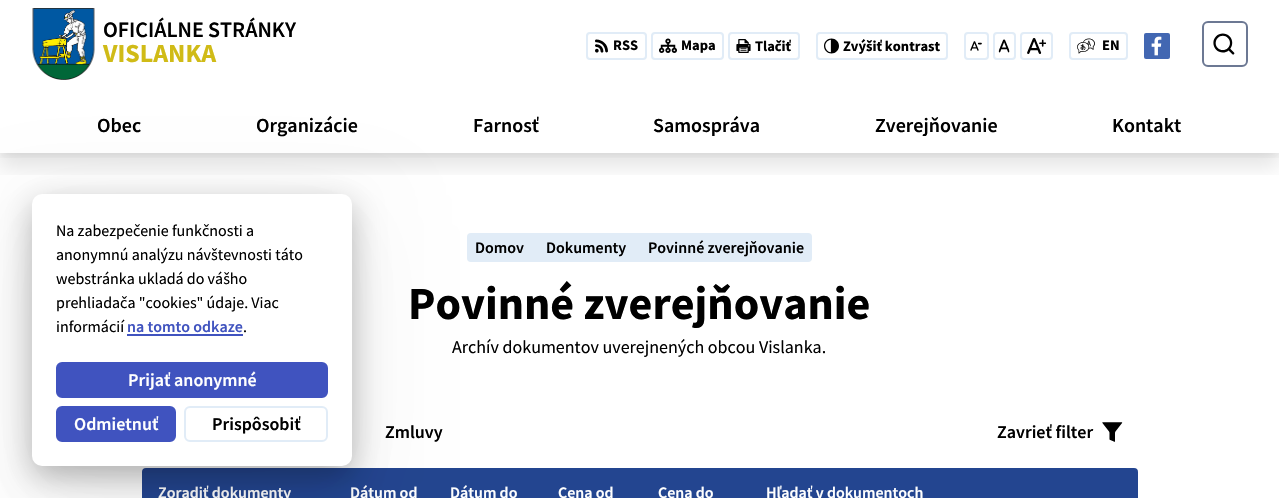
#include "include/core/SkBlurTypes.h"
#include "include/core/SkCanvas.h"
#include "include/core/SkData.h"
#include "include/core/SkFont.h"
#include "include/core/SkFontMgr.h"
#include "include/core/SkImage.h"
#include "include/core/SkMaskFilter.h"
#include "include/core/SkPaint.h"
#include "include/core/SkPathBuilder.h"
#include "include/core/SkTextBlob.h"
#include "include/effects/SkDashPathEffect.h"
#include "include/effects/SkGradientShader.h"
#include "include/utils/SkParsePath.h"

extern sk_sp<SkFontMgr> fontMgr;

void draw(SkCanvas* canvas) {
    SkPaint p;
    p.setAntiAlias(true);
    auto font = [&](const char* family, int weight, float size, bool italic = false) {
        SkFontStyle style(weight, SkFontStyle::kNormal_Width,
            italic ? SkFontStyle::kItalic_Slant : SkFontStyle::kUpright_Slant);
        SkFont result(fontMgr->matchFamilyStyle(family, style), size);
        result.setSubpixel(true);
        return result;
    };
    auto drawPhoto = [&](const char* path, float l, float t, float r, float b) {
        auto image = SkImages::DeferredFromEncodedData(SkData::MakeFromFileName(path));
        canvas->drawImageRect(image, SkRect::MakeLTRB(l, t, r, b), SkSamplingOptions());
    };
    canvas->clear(0xFFFFFFFF);
    drawPhoto("media/1.png", 32, 8, 95, 80);
    auto font1 = font("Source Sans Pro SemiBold", 600, 22);
    p.setColor(0xFF000000);
    canvas->drawString("OFICIÁLNE STRÁNKY", 103, 37, font1, p);
    auto font2 = font("Source Sans Pro", 700, 26);
    p.setColor(0xFFD0BB17);
    canvas->drawString("VISLANKA", 103, 62, font2, p);
    p.setStyle(SkPaint::kStroke_Style);
    p.setStrokeWidth(2);
    p.setColor(0xFFE1ECF7);
    canvas->drawRoundRect(SkRect::MakeLTRB(587, 33, 646, 59), 3, 3, p);
    drawPhoto("media/2.png", 595, 39, 608, 53);
    auto font3 = font("Source Sans Pro", 700, 14.5f);
    p.setStyle(SkPaint::kFill_Style);
    p.setColor(0xFF000000);
    canvas->drawString("RSS", 613, 50, font3, p);
    p.setStyle(SkPaint::kStroke_Style);
    p.setColor(0xFFE1ECF7);
    canvas->drawRoundRect(SkRect::MakeLTRB(652, 33, 723, 59), 3, 3, p);
    drawPhoto("media/3.png", 659, 38, 677, 53);
    p.setStyle(SkPaint::kFill_Style);
    p.setColor(0xFF000000);
    canvas->drawString("Mapa", 681, 50, font3, p);
    p.setStyle(SkPaint::kStroke_Style);
    p.setColor(0xFFE1ECF7);
    canvas->drawRoundRect(SkRect::MakeLTRB(729, 33, 799, 59), 3, 3, p);
    drawPhoto("media/4.png", 736, 39, 751, 53);
    p.setStyle(SkPaint::kFill_Style);
    p.setColor(0xFF000000);
    canvas->drawString("Tlačiť", 755, 51, font3, p);
    p.setStyle(SkPaint::kStroke_Style);
    p.setColor(0xFFE1ECF7);
    canvas->drawRoundRect(SkRect::MakeLTRB(817, 33, 947, 59), 3, 3, p);
    drawPhoto("media/5.png", 824, 38, 839, 54);
    p.setStyle(SkPaint::kFill_Style);
    p.setColor(0xFF000000);
    canvas->drawString("Zvýšiť kontrast", 843, 51, font3, p);
    p.setStyle(SkPaint::kStroke_Style);
    p.setColor(0xFFE1ECF7);
    canvas->drawRoundRect(SkRect::MakeLTRB(965, 33, 988, 59), 3, 3, p);
    drawPhoto("media/6.png", 970, 41, 982, 51);
    canvas->drawRoundRect(SkRect::MakeLTRB(994, 33, 1015, 59), 3, 3, p);
    drawPhoto("media/7.png", 998, 39, 1010, 53);
    canvas->drawRoundRect(SkRect::MakeLTRB(1021, 33, 1052, 59), 3, 3, p);
    drawPhoto("media/8.png", 1027, 38, 1047, 54);
    canvas->drawRoundRect(SkRect::MakeLTRB(1070, 33, 1127, 59), 3, 3, p);
    drawPhoto("media/9.png", 1077, 38, 1095, 54);
    p.setStyle(SkPaint::kFill_Style);
    p.setColor(0xFF000000);
    canvas->drawString("EN", 1102, 50, font3, p);
    p.setColor(0xFF4267B2);
    canvas->drawRoundRect(SkRect::MakeLTRB(1144, 33, 1170, 59), 2, 2, p);
    drawPhoto("media/10.png", 1151, 36, 1162, 56);
    p.setStyle(SkPaint::kStroke_Style);
    p.setColor(0xFF6C7893);
    canvas->drawRoundRect(SkRect::MakeLTRB(1203, 22, 1247, 66), 5, 5, p);
    drawPhoto("media/11.png", 1213, 33, 1235, 55);
    canvas->save();
    canvas->clipRect(SkRect::MakeLTRB(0, 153, 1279, 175));
    p.setStyle(SkPaint::kFill_Style);
    p.setColor(0x1A000000);
    p.setMaskFilter(SkMaskFilter::MakeBlur(kNormal_SkBlurStyle, 10));
    canvas->drawRect(SkRect::MakeLTRB(0, 110, 1279, 167), p);
    p.setMaskFilter(nullptr);
    canvas->restore();
    canvas->save();
    canvas->clipRect(SkRect::MakeLTRB(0, 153, 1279, 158));
    p.setColor(0x0D000000);
    p.setMaskFilter(SkMaskFilter::MakeBlur(kNormal_SkBlurStyle, 3));
    canvas->drawRect(SkRect::MakeLTRB(0, 100, 1279, 157), p);
    p.setMaskFilter(nullptr);
    canvas->restore();
    auto font4 = font("Source Sans Pro SemiBold", 600, 20);
    p.setColor(0xFF000000);
    {
        const struct { const char* s; float x, y; } items[] = {
            {"Obec", 97, 132},
            {"Organizácie", 256, 132},
            {"Farnosť", 473, 132},
            {"Samospráva", 653, 132},
            {"Zverejňovanie", 875, 132},
            {"Kontakt", 1112, 132},
        };
        for (auto [s, x, y] : items) {
            canvas->drawString(s, x, y, font4, p);
        }
    }
    p.setColor(0xFFE1ECF7);
    canvas->drawRoundRect(SkRect::MakeLTRB(467, 233, 812, 262), 4, 4, p);
    auto font5 = font("Source Sans Pro SemiBold", 600, 16);
    p.setColor(0xFF000000);
    {
        const struct { const char* s; float x, y; } items[] = {
            {"Domov", 475, 253},
            {"Dokumenty", 546, 253},
            {"Povinné zverejňovanie", 648, 253},
        };
        for (auto [s, x, y] : items) {
            canvas->drawString(s, x, y, font5, p);
        }
    }
    auto font6 = font("Source Sans Pro", 700, 46);
    canvas->drawString("Povinné zverejňovanie", 408, 319, font6, p);
    auto font7 = font("Source Sans Pro", 400, 18);
    canvas->drawString("Archív dokumentov uverejnených obcou Vislanka.", 452, 353, font7, p);
    auto font8 = font("Source Sans Pro SemiBold", 600, 18);
    canvas->drawString("Zmluvy", 385, 438, font8, p);
    canvas->drawString("Zavrieť filter", 997, 438, font8, p);
    drawPhoto("media/12.png", 1102, 422, 1123, 442);
    p.setColor(0xFF234590);
    canvas->drawRoundRect(SkRect::MakeLTRB(141, 467, 1139, 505), 5, 5, p);
    p.setStyle(SkPaint::kStroke_Style);
    p.setColor(0xFFFFFFFF);
    canvas->drawRoundRect(SkRect::MakeLTRB(141, 467, 1139, 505), 5, 5, p);
    p.setStyle(SkPaint::kFill_Style);
    {
        const struct { const char* s; float x, y; } items[] = {
            {"Zoradiť dokumenty", 158, 498},
            {"Dátum od", 350, 498},
            {"Dátum do", 450, 498},
            {"Cena od", 558, 498},
            {"Cena do", 658, 498},
            {"Hľadať v dokumentoch", 766, 498},
        };
        for (auto [s, x, y] : items) {
            canvas->drawString(s, x, y, font5, p);
        }
    }
    p.setColor(0x0D000000);
    p.setMaskFilter(SkMaskFilter::MakeBlur(kNormal_SkBlurStyle, 45));
    canvas->drawRoundRect(SkRect::MakeLTRB(32, 224, 352, 496), 10, 10, p);
    p.setMaskFilter(nullptr);
    p.setMaskFilter(SkMaskFilter::MakeBlur(kNormal_SkBlurStyle, 30));
    canvas->drawRoundRect(SkRect::MakeLTRB(32, 214, 352, 486), 10, 10, p);
    p.setMaskFilter(nullptr);
    p.setColor(0x40000000);
    p.setMaskFilter(SkMaskFilter::MakeBlur(kNormal_SkBlurStyle, 15));
    canvas->drawRoundRect(SkRect::MakeLTRB(32, 204, 352, 476), 10, 10, p);
    p.setMaskFilter(nullptr);
    p.setColor(0xFFFFFFFF);
    canvas->drawRoundRect(SkRect::MakeLTRB(32, 194, 352, 466), 10, 10, p);
    auto font9 = font("Source Sans Pro", 400, 16);
    p.setColor(0xFF000000);
    {
        const struct { const char* s; float x, y; } items[] = {
            {"Na zabezpečenie funkčnosti a", 56, 236},
            {"anonymnú analýzu návštevnosti táto", 56, 260},
            {"webstránka ukladá do vášho", 56, 284},
            {"prehliadača \"cookies\" údaje. Viac", 56, 308},
            {"informácií", 56, 332},
        };
        for (auto [s, x, y] : items) {
            canvas->drawString(s, x, y, font9, p);
        }
    }
    p.setColor(0xFF4053BF);
    canvas->drawString("na tomto odkaze", 127, 332, font5, p);
    canvas->drawRect(SkRect::MakeLTRB(127, 334, 243, 336), p);
    p.setColor(0xFF000000);
    canvas->drawString(".", 243, 332, font9, p);
    p.setColor(0xFF4053BF);
    canvas->drawRoundRect(SkRect::MakeLTRB(57, 363, 327, 397), 5, 5, p);
    p.setStyle(SkPaint::kStroke_Style);
    canvas->drawRoundRect(SkRect::MakeLTRB(57, 363, 327, 397), 5, 5, p);
    p.setStyle(SkPaint::kFill_Style);
    p.setColor(0xFFFFFFFF);
    canvas->drawString("Prijať anonymné", 128, 386, font8, p);
    p.setColor(0xFF4053BF);
    canvas->drawRoundRect(SkRect::MakeLTRB(57, 407, 175, 441), 5, 5, p);
    p.setStyle(SkPaint::kStroke_Style);
    canvas->drawRoundRect(SkRect::MakeLTRB(57, 407, 175, 441), 5, 5, p);
    p.setStyle(SkPaint::kFill_Style);
    p.setColor(0xFFFFFFFF);
    canvas->drawString("Odmietnuť", 74, 430, font8, p);
    p.setStyle(SkPaint::kStroke_Style);
    p.setColor(0xFFE1ECF7);
    canvas->drawRoundRect(SkRect::MakeLTRB(185, 407, 327, 441), 5, 5, p);
    p.setStyle(SkPaint::kFill_Style);
    p.setColor(0xFF000000);
    canvas->drawString("Prispôsobiť", 212, 430, font8, p);
}
